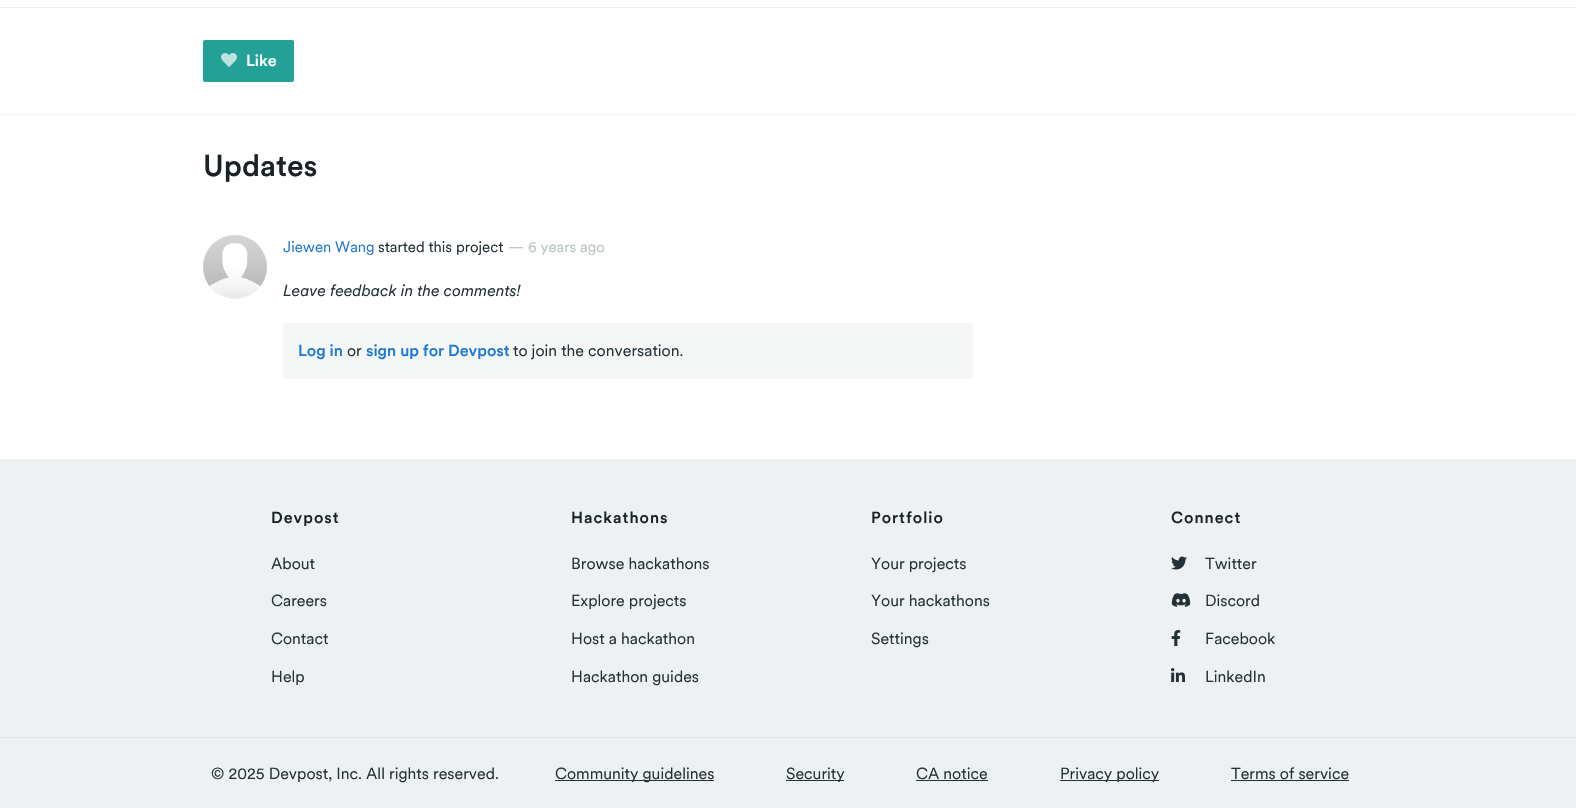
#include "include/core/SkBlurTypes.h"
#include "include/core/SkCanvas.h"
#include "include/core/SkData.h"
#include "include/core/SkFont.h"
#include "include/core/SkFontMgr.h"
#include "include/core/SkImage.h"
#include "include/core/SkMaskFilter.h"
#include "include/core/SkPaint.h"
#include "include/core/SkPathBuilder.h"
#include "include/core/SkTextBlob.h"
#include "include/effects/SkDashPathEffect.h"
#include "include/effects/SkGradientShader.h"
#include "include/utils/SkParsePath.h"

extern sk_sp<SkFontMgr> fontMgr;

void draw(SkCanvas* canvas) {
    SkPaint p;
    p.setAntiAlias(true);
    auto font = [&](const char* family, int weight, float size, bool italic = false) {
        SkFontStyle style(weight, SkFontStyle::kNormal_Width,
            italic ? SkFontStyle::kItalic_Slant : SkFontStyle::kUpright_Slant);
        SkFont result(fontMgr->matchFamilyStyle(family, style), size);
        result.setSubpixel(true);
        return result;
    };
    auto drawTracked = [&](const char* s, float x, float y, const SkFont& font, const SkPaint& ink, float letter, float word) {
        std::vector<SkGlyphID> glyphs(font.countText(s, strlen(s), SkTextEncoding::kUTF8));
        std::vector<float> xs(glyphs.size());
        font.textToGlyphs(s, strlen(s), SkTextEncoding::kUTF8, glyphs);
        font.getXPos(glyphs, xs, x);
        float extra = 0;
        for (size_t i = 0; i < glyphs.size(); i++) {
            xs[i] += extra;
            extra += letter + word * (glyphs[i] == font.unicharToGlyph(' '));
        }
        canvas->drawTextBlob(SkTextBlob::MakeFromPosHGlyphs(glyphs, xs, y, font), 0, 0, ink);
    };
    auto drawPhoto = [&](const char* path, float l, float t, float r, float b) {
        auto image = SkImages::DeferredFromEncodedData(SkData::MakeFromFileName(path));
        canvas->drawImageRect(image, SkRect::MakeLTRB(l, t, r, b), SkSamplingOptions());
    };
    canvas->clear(0xFFFFFFFF);
    p.setColor(0xFFEDF1F2);
    canvas->drawRect(SkRect::MakeLTRB(0, 7, 1576, 8), p);
    canvas->drawRect(SkRect::MakeLTRB(0, 114, 1576, 115), p);
    p.setColor(0xFF23A196);
    canvas->drawRoundRect(SkRect::MakeLTRB(203, 40, 294, 82), 2, 2, p);
    drawPhoto("media/1.png", 221, 53, 237, 67);
    auto font1 = font("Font", 500, 16);
    p.setColor(0xFFFFFFFF);
    canvas->drawString("Like", 246, 66, font1, p);
    auto font2 = font("Font", 500, 30);
    p.setColor(0xFF192325);
    canvas->drawString("Updates", 203, 176, font2, p);
    drawPhoto("media/2.png", 203, 235, 267, 299);
    auto font3 = font("Font", 400, 15);
    p.setColor(0xFF1F78D1);
    canvas->drawString("Jiewen Wang", 283, 252, font3, p);
    p.setColor(0xFF233136);
    canvas->drawString("started this project", 378, 252, font3, p);
    p.setColor(0xFFB7C3C7);
    canvas->drawString("— 6 years ago", 508, 252, font3, p);
    auto font4 = font("Font", 400, 16, true);
    p.setColor(0xFF233136);
    canvas->drawString("Leave feedback in the comments!", 283, 296, font4, p);
    p.setColor(0xFFF5F7F7);
    canvas->drawRect(SkRect::MakeLTRB(283, 323, 973, 379), p);
    p.setColor(0xFF1F78D1);
    canvas->drawString("Log in", 298, 356, font1, p);
    auto font5 = font("Font", 400, 16);
    p.setColor(0xFF233136);
    canvas->drawString("or", 347, 356, font5, p);
    p.setColor(0xFF1F78D1);
    canvas->drawString("sign up for Devpost", 366, 356, font1, p);
    p.setColor(0xFF233136);
    canvas->drawString("to join the conversation.", 513, 356, font5, p);
    p.setColor(0xFFEDF1F2);
    canvas->drawRect(SkRect::MakeLTRB(0, 459, 1576, 808), p);
    p.setColor(0xFF192325);
    drawTracked("Devpost", 271, 523, font1, p, 1, 0);
    p.setColor(0xFF233136);
    {
        const struct { const char* s; float x, y; } items[] = {
            {"About", 271, 569},
            {"Careers", 271, 606},
            {"Contact", 271, 644},
            {"Help", 271, 682},
        };
        for (auto [s, x, y] : items) {
            canvas->drawString(s, x, y, font5, p);
        }
    }
    p.setColor(0xFF192325);
    drawTracked("Hackathons", 571, 523, font1, p, 1, 0);
    p.setColor(0xFF233136);
    {
        const struct { const char* s; float x, y; } items[] = {
            {"Browse hackathons", 571, 569},
            {"Explore projects", 571, 606},
            {"Host a hackathon", 571, 644},
            {"Hackathon guides", 571, 682},
        };
        for (auto [s, x, y] : items) {
            canvas->drawString(s, x, y, font5, p);
        }
    }
    p.setColor(0xFF192325);
    drawTracked("Portfolio", 871, 523, font1, p, 1, 0);
    p.setColor(0xFF233136);
    {
        const struct { const char* s; float x, y; } items[] = {
            {"Your projects", 871, 569},
            {"Your hackathons", 871, 606},
            {"Settings", 871, 644},
        };
        for (auto [s, x, y] : items) {
            canvas->drawString(s, x, y, font5, p);
        }
    }
    p.setColor(0xFF192325);
    drawTracked("Connect", 1171, 523, font1, p, 1, 0);
    drawPhoto("media/3.png", 1171, 556, 1187, 570);
    p.setColor(0xFF233136);
    canvas->drawString("Twitter", 1205, 569, font5, p);
    drawPhoto("media/4.png", 1171, 593, 1191, 607);
    canvas->drawString("Discord", 1205, 606, font5, p);
    drawPhoto("media/5.png", 1171, 630, 1181, 646);
    canvas->drawString("Facebook", 1205, 644, font5, p);
    drawPhoto("media/6.png", 1171, 668, 1185, 682);
    canvas->drawString("LinkedIn", 1205, 682, font5, p);
    p.setColor(0xFFDCE6E9);
    canvas->drawRect(SkRect::MakeLTRB(0, 737, 1576, 738), p);
    p.setColor(0xFF233136);
    canvas->drawString("© 2025 Devpost, Inc. All rights reserved.", 211, 779, font5, p);
    canvas->drawRect(SkRect::MakeLTRB(555, 780, 714, 781), p);
    canvas->drawString("Community guidelines", 555, 779, font5, p);
    canvas->drawRect(SkRect::MakeLTRB(786, 780, 844, 781), p);
    canvas->drawString("Security", 786, 779, font5, p);
    canvas->drawString("CA notice", 916, 779, font5, p);
    canvas->drawRect(SkRect::MakeLTRB(916, 780, 988, 781), p);
    canvas->drawRect(SkRect::MakeLTRB(1060, 780, 1159, 781), p);
    canvas->drawString("Privacy policy", 1060, 779, font5, p);
    canvas->drawString("Terms of service", 1231, 779, font5, p);
    canvas->drawRect(SkRect::MakeLTRB(1231, 780, 1349, 781), p);
}
